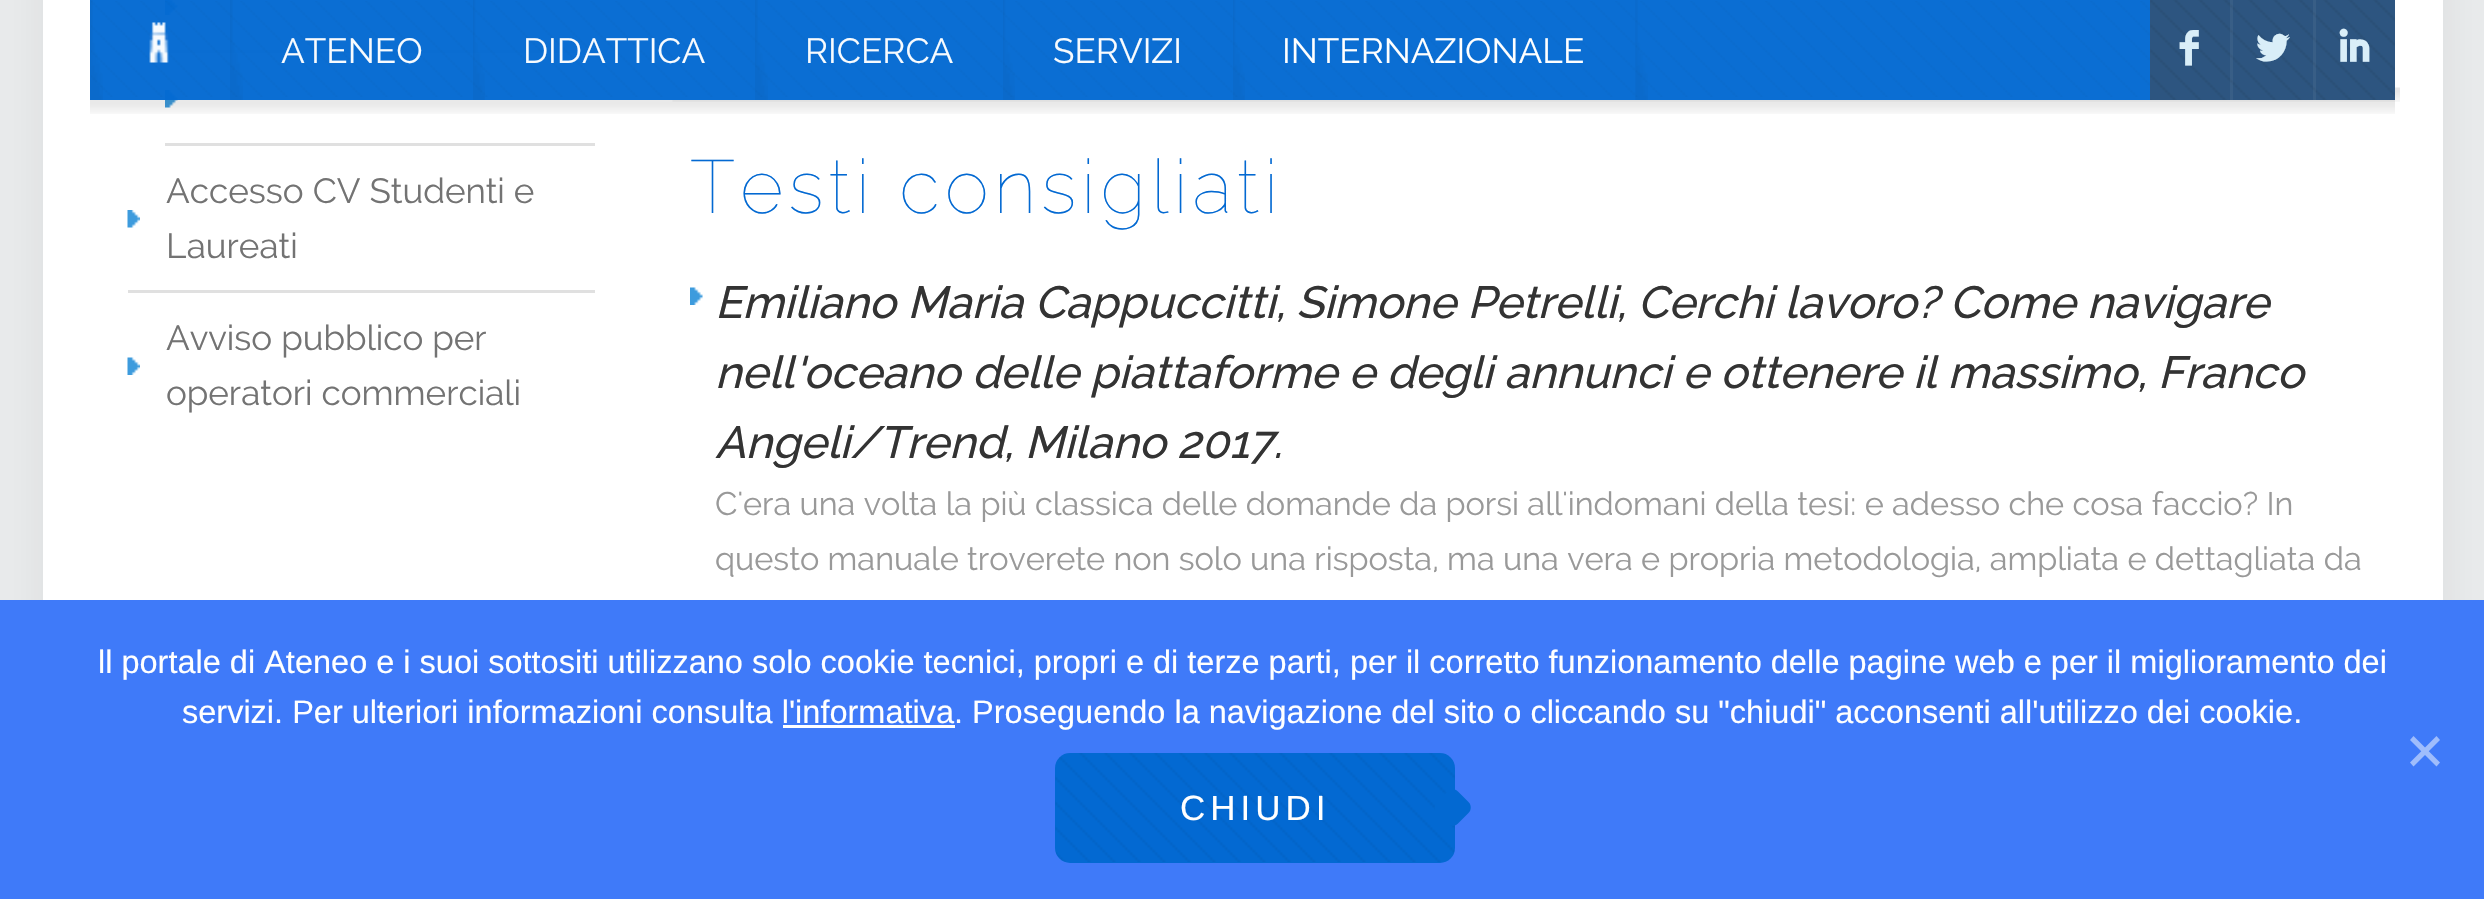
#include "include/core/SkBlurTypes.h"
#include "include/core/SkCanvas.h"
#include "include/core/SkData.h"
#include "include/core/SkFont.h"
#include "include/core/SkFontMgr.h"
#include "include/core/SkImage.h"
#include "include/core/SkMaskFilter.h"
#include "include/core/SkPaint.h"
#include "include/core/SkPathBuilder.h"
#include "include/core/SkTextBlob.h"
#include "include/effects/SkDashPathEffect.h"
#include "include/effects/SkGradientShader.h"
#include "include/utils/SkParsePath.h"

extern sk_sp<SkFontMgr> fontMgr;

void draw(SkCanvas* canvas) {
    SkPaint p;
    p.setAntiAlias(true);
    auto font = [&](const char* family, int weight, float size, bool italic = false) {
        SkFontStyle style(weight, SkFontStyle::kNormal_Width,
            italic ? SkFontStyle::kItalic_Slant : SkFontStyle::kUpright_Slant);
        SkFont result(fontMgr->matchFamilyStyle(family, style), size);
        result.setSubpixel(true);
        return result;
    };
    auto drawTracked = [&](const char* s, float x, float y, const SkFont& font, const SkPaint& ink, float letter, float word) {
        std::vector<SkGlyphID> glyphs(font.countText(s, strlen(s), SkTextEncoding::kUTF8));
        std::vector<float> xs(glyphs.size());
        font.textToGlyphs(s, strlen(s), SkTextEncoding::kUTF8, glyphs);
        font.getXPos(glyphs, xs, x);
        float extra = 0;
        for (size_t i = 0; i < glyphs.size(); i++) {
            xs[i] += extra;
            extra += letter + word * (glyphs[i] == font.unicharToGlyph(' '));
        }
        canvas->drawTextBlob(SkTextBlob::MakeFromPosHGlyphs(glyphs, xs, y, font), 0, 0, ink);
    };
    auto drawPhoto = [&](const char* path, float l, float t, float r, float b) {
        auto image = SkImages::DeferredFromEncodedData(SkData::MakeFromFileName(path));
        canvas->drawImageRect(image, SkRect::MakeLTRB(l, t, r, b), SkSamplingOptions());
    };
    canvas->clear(0xFFE9EBEC);
    p.setColor(0x0F000000);
    p.setMaskFilter(SkMaskFilter::MakeBlur(kNormal_SkBlurStyle, 19));
    canvas->drawRect(SkRect::MakeLTRB(43, -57, 2443, 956), p);
    p.setMaskFilter(nullptr);
    p.setColor(0xFFFFFFFF);
    canvas->drawRect(SkRect::MakeLTRB(43, 0, 2443, 600), p);
    drawPhoto("media/12.png", 165, 0, 178, 15);
    p.setColor(0xFFE0E0E0);
    canvas->drawRect(SkRect::MakeLTRB(165, 50, 595, 53), p);
    drawPhoto("media/13.png", 165, 90, 178, 108);
    drawPhoto("media/16.png", 672, 87, 2400, 102);
    p.setColor(0xF70369D2);
    canvas->drawRect(SkRect::MakeLTRB(90, 0, 2395, 100), p);
    drawPhoto("media/1.png", 91, 1, 2392, 97);
    drawPhoto("media/2.png", 90, 0, 103, 100);
    drawPhoto("media/3.png", 149, 22, 169, 63);
    drawPhoto("media/4.png", 230, 0, 243, 100);
    auto font1 = font("Raleway", 400, 35);
    p.setColor(0xFFF8FBFE);
    canvas->drawString("ATENEO", 281, 63, font1, p);
    drawPhoto("media/5.png", 473, 0, 485, 100);
    canvas->drawString("DIDATTICA", 523, 63, font1, p);
    drawPhoto("media/6.png", 755, 0, 768, 100);
    canvas->drawString("RICERCA", 805, 63, font1, p);
    drawPhoto("media/7.png", 1003, 0, 1015, 100);
    canvas->drawString("SERVIZI", 1053, 63, font1, p);
    drawPhoto("media/8.png", 1233, 0, 1245, 100);
    p.setColor(0xFFFFFFFF);
    canvas->drawString("INTERNAZIONALE", 1282, 63, font1, p);
    drawPhoto("media/9.png", 1635, 0, 1648, 100);
    drawPhoto("media/10.png", 90, 100, 2395, 114);
    p.setColor(0xF72D547D);
    canvas->drawRect(SkRect::MakeLTRB(2150, 0, 2395, 100), p);
    drawPhoto("media/11.png", 2150, 0, 2395, 100);
    auto font2 = font("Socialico", 400, 58);
    p.setColor(0xFFD9EEF8);
    canvas->drawString("F", 2177, 68, font2, p);
    p.setColor(0x0DFFFFFF);
    canvas->drawRect(SkRect::MakeLTRB(2230, 0, 2233, 100), p);
    p.setColor(0xFFD9EEF8);
    canvas->drawString("L", 2249, 68, font2, p);
    p.setColor(0x0DFFFFFF);
    canvas->drawRect(SkRect::MakeLTRB(2313, 0, 2316, 100), p);
    p.setColor(0xFFD9EEF8);
    canvas->drawString("I", 2337, 68, font2, p);
    p.setColor(0xFFE0E0E0);
    canvas->drawRect(SkRect::MakeLTRB(165, 143, 595, 146), p);
    drawPhoto("media/14.png", 127, 210, 140, 228);
    canvas->drawRect(SkRect::MakeLTRB(128, 290, 595, 293), p);
    p.setColor(0xFF737373);
    canvas->drawString("Accesso CV Studenti e", 166, 203, font1, p);
    canvas->drawString("Laureati", 166, 258, font1, p);
    drawPhoto("media/15.png", 127, 357, 140, 375);
    canvas->drawString("Avviso pubblico per", 166, 350, font1, p);
    canvas->drawString("operatori commerciali", 166, 405, font1, p);
    auto font3 = font("Raleway", 100, 75);
    p.setColor(0xFF0369D2);
    drawTracked("Testi consigliati", 690, 213, font3, p, 5, 0);
    drawPhoto("media/17.png", 690, 287, 703, 305);
    auto font4 = font("Raleway", 500, 45, true);
    p.setColor(0xFF333333);
    {
        const struct { const char* s; float x, y; } items[] = {
            {"Emiliano Maria Cappuccitti, Simone Petrelli, Cerchi lavoro? Come navigare", 715, 318},
            {"nell'oceano delle piattaforme e degli annunci e ottenere il massimo, Franco", 715, 388},
            {"Angeli/Trend, Milano 2017.", 715, 458},
        };
        for (auto [s, x, y] : items) {
            canvas->drawString(s, x, y, font4, p);
        }
    }
    auto font5 = font("Raleway", 400, 32.5f);
    p.setColor(0xFF999999);
    canvas->drawString("C'era una volta la più classica delle domande da porsi all'indomani della tesi: e adesso che cosa faccio? In", 715, 515, font5, p);
    canvas->drawString("questo manuale troverete non solo una risposta, ma una vera e propria metodologia, ampliata e dettagliata da", 715, 570, font5, p);
    p.setColor(0xFF3F7AF9);
    canvas->drawRect(SkRect::MakeLTRB(0, 600, 2484, 899), p);
    auto font6 = font("Liberation Sans", 400, 32.5f);
    p.setColor(0xFFFFFFFF);
    canvas->drawString("ll portale di Ateneo e i suoi sottositi utilizzano solo cookie tecnici, propri e di terze parti, per il corretto funzionamento delle pagine web e per il miglioramento dei", 98, 673, font6, p);
    canvas->drawString("servizi. Per ulteriori informazioni consulta l'informativa. Proseguendo la navigazione del sito o cliccando su \"chiudi\" acconsenti all'utilizzo dei cookie.", 182, 723, font6, p);
    canvas->drawRect(SkRect::MakeLTRB(783, 725, 955, 728), p);
    p.setColor(0xFF9FBDFC);
    canvas->drawPath(SkPathBuilder().moveTo(2436.5f, 736).lineTo(2440, 740).lineTo(2413.5f, 766.5f).lineTo(2410, 762.5f).close().detach(), p);
    canvas->drawPath(SkPathBuilder().moveTo(2410, 740).lineTo(2413.5f, 736).lineTo(2440, 762.5f).lineTo(2436.5f, 766.5f).close().detach(), p);
    p.setColor(0xFF0369D2);
    canvas->drawRoundRect(SkRect::MakeLTRB(1055, 753, 1455, 863), 15, 15, p);
    drawPhoto("media/18.png", 1055, 753, 1455, 862);
    auto font7 = font("Liberation Sans", 400, 35);
    p.setColor(0xFFFFFFFF);
    drawTracked("CHIUDI", 1180, 820, font7, p, 5, 0);
    p.setColor(0xFF0369D2);
    canvas->drawPath(SkPathBuilder().moveTo(1458, 791.5f).lineTo(1468.5f, 802).cubicTo(1471.5f, 805, 1471.5f, 810, 1468.5f, 813).lineTo(1458, 823.5f).cubicTo(1455, 826.5f, 1450.5f, 826.5f, 1447.5f, 823.5f).lineTo(1437, 813).cubicTo(1434, 810, 1434, 805, 1437, 802).lineTo(1447.5f, 791.5f).cubicTo(1450.5f, 788.5f, 1455, 788.5f, 1458, 791.5f).close().detach(), p);
}
